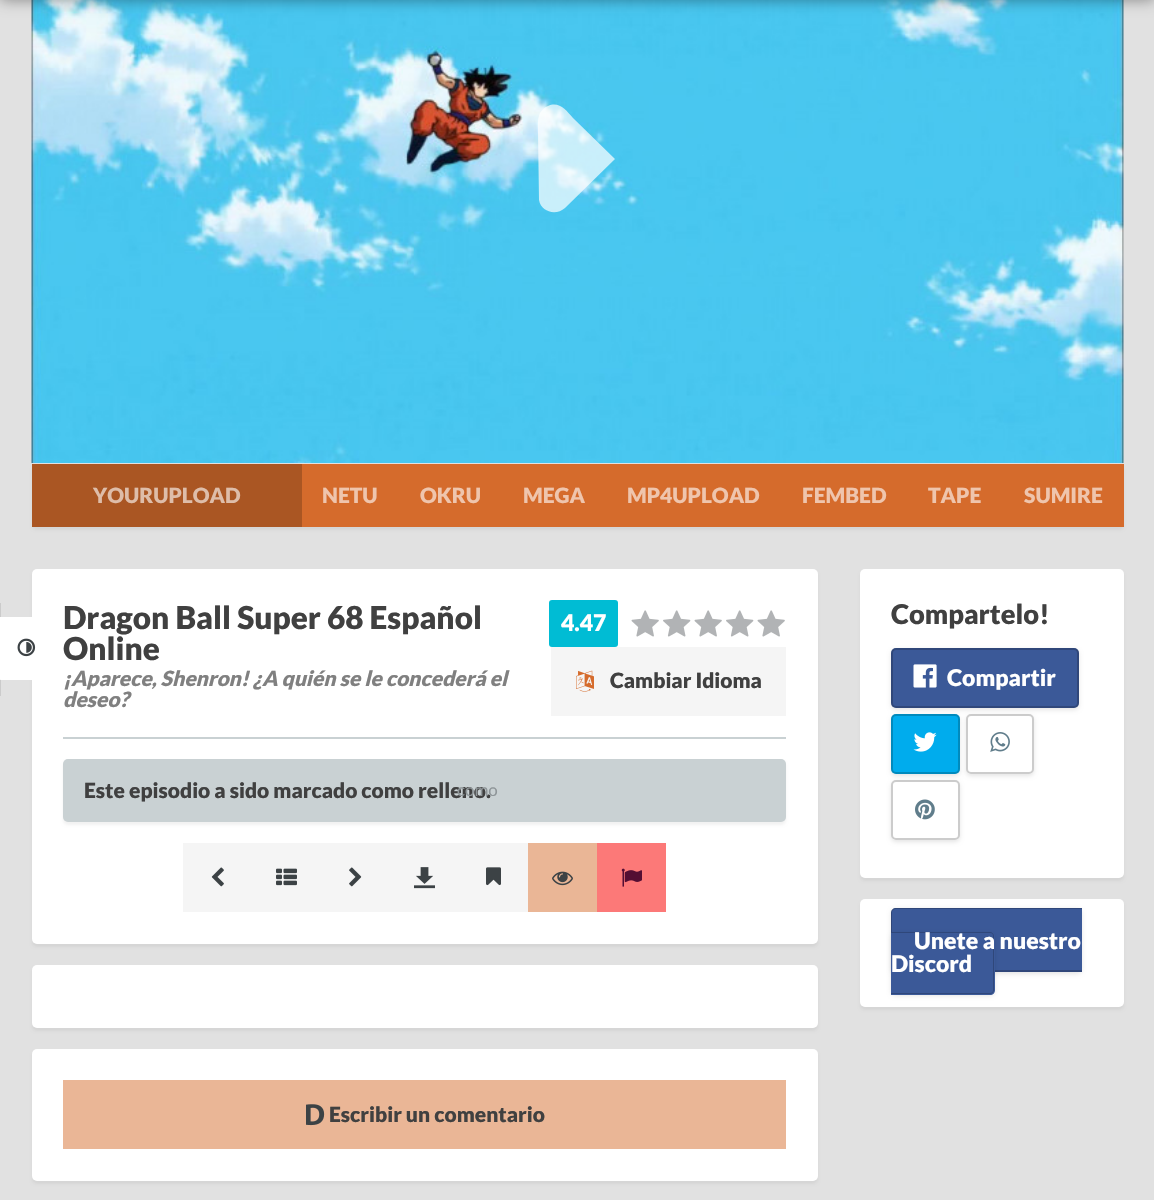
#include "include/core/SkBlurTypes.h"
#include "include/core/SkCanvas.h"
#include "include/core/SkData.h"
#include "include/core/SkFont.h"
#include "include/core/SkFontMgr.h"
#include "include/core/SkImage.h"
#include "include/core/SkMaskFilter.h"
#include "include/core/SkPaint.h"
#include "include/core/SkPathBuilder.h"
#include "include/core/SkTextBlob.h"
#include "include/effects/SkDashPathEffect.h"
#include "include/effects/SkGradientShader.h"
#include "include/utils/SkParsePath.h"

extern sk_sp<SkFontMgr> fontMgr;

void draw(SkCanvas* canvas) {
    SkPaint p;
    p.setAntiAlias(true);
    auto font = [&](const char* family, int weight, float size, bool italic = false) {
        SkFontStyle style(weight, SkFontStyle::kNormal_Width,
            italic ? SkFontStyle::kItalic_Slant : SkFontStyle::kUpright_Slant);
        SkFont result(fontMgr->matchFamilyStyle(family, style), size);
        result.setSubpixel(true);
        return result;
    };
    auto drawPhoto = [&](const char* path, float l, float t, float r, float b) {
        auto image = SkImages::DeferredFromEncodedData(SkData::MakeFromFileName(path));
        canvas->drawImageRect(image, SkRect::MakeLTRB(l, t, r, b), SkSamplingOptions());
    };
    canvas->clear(0xFFE1E1E1);
    p.setColor(0xFFCBCBCB);
    canvas->drawRect(SkRect::MakeLTRB(0, 603, 1, 696), p);
    p.setColor(0x0D000000);
    p.setMaskFilter(SkMaskFilter::MakeBlur(kNormal_SkBlurStyle, 1.5f));
    canvas->drawRoundRect(SkRect::MakeLTRB(32, 572, 818, 947), 5, 5, p);
    p.setMaskFilter(nullptr);
    p.setColor(0xFFFFFFFF);
    canvas->drawRoundRect(SkRect::MakeLTRB(32, 569, 818, 944), 5, 5, p);
    canvas->drawPath(SkPathBuilder().moveTo(-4, 617).lineTo(53, 617).cubicTo(56.5f, 617, 59, 619.5f, 59, 623).lineTo(59, 680).lineTo(2, 680).cubicTo(-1.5f, 680, -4, 677.5f, -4, 674).close().detach(), p);
    drawPhoto("media/1.png", 17, 638, 36, 657);
    drawPhoto("media/2.png", 31, 0, 1124, 463);
    p.setColor(0x66000000);
    p.setMaskFilter(SkMaskFilter::MakeBlur(kNormal_SkBlurStyle, 7.5f));
    canvas->drawRect(SkRect::MakeLTRB(0, -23, 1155, 0), p);
    p.setMaskFilter(nullptr);
    p.setColor(0xB3FFFFFF);
    canvas->drawPath(SkPathBuilder().moveTo(565, 208).cubicTo(556, 216, 541, 212, 539, 200).lineTo(538, 133).cubicTo(538, 128, 537, 119, 540, 113).cubicTo(542, 110, 545, 107, 548, 106).cubicTo(559, 101, 566, 110, 573, 118).lineTo(615, 159).close().detach(), p);
    p.setColor(0x0D000000);
    p.setMaskFilter(SkMaskFilter::MakeBlur(kNormal_SkBlurStyle, 1.5f));
    canvas->drawRoundRect(SkRect::MakeLTRB(32, 467, 1124, 530), 5, 5, p);
    p.setMaskFilter(nullptr);
    p.setColor(0xFFD56B2C);
    canvas->drawRect(SkRect::MakeLTRB(302, 464, 1124, 527), p);
    p.setColor(0xFFAA5623);
    canvas->drawRect(SkRect::MakeLTRB(32, 464, 302, 527), p);
    auto font1 = font("Lato", 900, 21);
    p.setColor(0xFFDEBDA9);
    canvas->drawString("YOURUPLOAD", 93, 503, font1, p);
    p.setColor(0xFFEFC5AD);
    {
        const struct { const char* s; float x, y; } items[] = {
            {"NETU", 322, 503},
            {"OKRU", 420, 503},
            {"MEGA", 523, 503},
            {"MP4UPLOAD", 627, 503},
            {"FEMBED", 802, 503},
            {"TAPE", 928, 503},
            {"SUMIRE", 1024, 503},
        };
        for (auto [s, x, y] : items) {
            canvas->drawString(s, x, y, font1, p);
        }
    }
    p.setColor(0xFFC9D1D3);
    canvas->drawRect(SkRect::MakeLTRB(63, 737, 786, 739), p);
    auto font2 = font("Lato", 900, 31.5f);
    p.setColor(0xFF404040);
    canvas->drawString("Dragon Ball Super 68 Español", 63, 629, font2, p);
    canvas->drawString("Online", 63, 660, font2, p);
    auto font3 = font("Lato", 900, 21, true);
    p.setColor(0xFF808080);
    canvas->drawString("¡Aparece, Shenron! ¿A quién se le concederá el", 63, 686, font3, p);
    canvas->drawString("deseo?", 63, 707, font3, p);
    p.setColor(0xFF00BCD4);
    canvas->drawRoundRect(SkRect::MakeLTRB(549, 600, 618, 647), 3, 3, p);
    auto font4 = font("Lato", 900, 23);
    p.setColor(0xFFFFFFFF);
    canvas->drawString("4.47", 561, 631, font4, p);
    drawPhoto("media/3.png", 631, 610, 659, 637);
    drawPhoto("media/4.png", 663, 610, 691, 637);
    drawPhoto("media/3.png", 694, 610, 722, 637);
    drawPhoto("media/4.png", 726, 610, 754, 637);
    drawPhoto("media/3.png", 757, 610, 785, 637);
    p.setColor(0xFFF5F5F5);
    canvas->drawRect(SkRect::MakeLTRB(551, 647, 786, 716), p);
    drawPhoto("media/5.png", 576, 670, 594, 692);
    p.setColor(0xFF404040);
    canvas->drawString("Cambiar Idioma", 610, 688, font1, p);
    p.setColor(0x0D000000);
    p.setMaskFilter(SkMaskFilter::MakeBlur(kNormal_SkBlurStyle, 1.5f));
    canvas->drawRoundRect(SkRect::MakeLTRB(63, 762, 786, 825), 5, 5, p);
    p.setMaskFilter(nullptr);
    p.setColor(0xFFC9D1D3);
    canvas->drawRoundRect(SkRect::MakeLTRB(63, 759, 786, 822), 5, 5, p);
    p.setColor(0xFF404040);
    canvas->drawString("Este episodio a sido marcado como relleno.", 84, 798, font1, p);
    auto font5 = font("Lato", 400, 17);
    p.setColor(0xFF8F9699);
    canvas->drawString("como", 457, 796, font5, p);
    p.setColor(0xFFF5F5F5);
    canvas->drawRect(SkRect::MakeLTRB(183, 843, 528, 912), p);
    drawPhoto("media/6.png", 486, 867, 501, 886);
    p.setColor(0xFFEAB696);
    canvas->drawRect(SkRect::MakeLTRB(528, 843, 597, 912), p);
    drawPhoto("media/7.png", 552, 871, 573, 886);
    p.setColor(0xFFFC7978);
    canvas->drawRect(SkRect::MakeLTRB(597, 843, 666, 912), p);
    drawPhoto("media/8.png", 621, 868, 642, 887);
    drawPhoto("media/9.png", 211, 867, 224, 887);
    drawPhoto("media/10.png", 276, 868, 297, 886);
    drawPhoto("media/11.png", 349, 867, 362, 887);
    drawPhoto("media/12.png", 414, 867, 435, 889);
    p.setColor(0x0D000000);
    p.setMaskFilter(SkMaskFilter::MakeBlur(kNormal_SkBlurStyle, 1.5f));
    canvas->drawRoundRect(SkRect::MakeLTRB(32, 968, 818, 1031), 5, 5, p);
    p.setMaskFilter(nullptr);
    p.setColor(0xFFFFFFFF);
    canvas->drawRoundRect(SkRect::MakeLTRB(32, 965, 818, 1028), 5, 5, p);
    p.setColor(0x0D000000);
    p.setMaskFilter(SkMaskFilter::MakeBlur(kNormal_SkBlurStyle, 1.5f));
    canvas->drawRoundRect(SkRect::MakeLTRB(32, 1052, 818, 1184), 5, 5, p);
    p.setMaskFilter(nullptr);
    p.setColor(0xFFFFFFFF);
    canvas->drawRoundRect(SkRect::MakeLTRB(32, 1049, 818, 1181), 5, 5, p);
    p.setColor(0xFFEAB696);
    canvas->drawRect(SkRect::MakeLTRB(63, 1080, 786, 1149), p);
    drawPhoto("media/13.png", 306, 1104, 325, 1126);
    p.setColor(0xFF404040);
    canvas->drawString("Escribir un comentario", 329, 1122, font1, p);
    p.setColor(0x0D000000);
    p.setMaskFilter(SkMaskFilter::MakeBlur(kNormal_SkBlurStyle, 1.5f));
    canvas->drawRoundRect(SkRect::MakeLTRB(860, 572, 1124, 881), 5, 5, p);
    p.setMaskFilter(nullptr);
    p.setColor(0xFFFFFFFF);
    canvas->drawRoundRect(SkRect::MakeLTRB(860, 569, 1124, 878), 5, 5, p);
    auto font6 = font("Lato", 900, 27.25f);
    p.setColor(0xFF404040);
    canvas->drawString("Compartelo!", 891, 624, font6, p);
    p.setColor(0x1A000000);
    p.setMaskFilter(SkMaskFilter::MakeBlur(kNormal_SkBlurStyle, 2));
    canvas->drawRoundRect(SkRect::MakeLTRB(891, 650, 1079, 710), 5, 5, p);
    p.setMaskFilter(nullptr);
    p.setColor(0xFF3B5998);
    canvas->drawRoundRect(SkRect::MakeLTRB(891, 648, 1079, 708), 5, 5, p);
    p.setStyle(SkPaint::kStroke_Style);
    p.setStrokeWidth(2);
    p.setColor(0x33000000);
    canvas->drawRoundRect(SkRect::MakeLTRB(892, 649, 1078, 707), 4, 4, p);
    drawPhoto("media/14.png", 913, 664, 937, 688);
    p.setStyle(SkPaint::kFill_Style);
    p.setColor(0xFFFFFFFF);
    canvas->drawString("Compartir", 947, 686, font4, p);
    p.setColor(0x1A000000);
    p.setMaskFilter(SkMaskFilter::MakeBlur(kNormal_SkBlurStyle, 2));
    canvas->drawRoundRect(SkRect::MakeLTRB(891, 716, 960, 776), 5, 5, p);
    p.setMaskFilter(nullptr);
    p.setColor(0xFF00ACED);
    canvas->drawRoundRect(SkRect::MakeLTRB(891, 714, 960, 774), 5, 5, p);
    p.setStyle(SkPaint::kStroke_Style);
    p.setColor(0x33000000);
    canvas->drawRoundRect(SkRect::MakeLTRB(892, 715, 959, 773), 4, 4, p);
    drawPhoto("media/15.png", 913, 732, 937, 752);
    canvas->save();
    canvas->clipPath(SkPathBuilder(SkPathFillType::kEvenOdd).moveTo(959, 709).lineTo(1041, 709).lineTo(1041, 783).lineTo(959, 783).close().moveTo(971, 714).lineTo(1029, 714).cubicTo(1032, 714, 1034, 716, 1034, 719).lineTo(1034, 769).cubicTo(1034, 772, 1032, 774, 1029, 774).lineTo(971, 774).cubicTo(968, 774, 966, 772, 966, 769).lineTo(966, 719).cubicTo(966, 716, 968, 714, 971, 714).close().detach(), true);
    p.setStyle(SkPaint::kFill_Style);
    p.setColor(0x1A000000);
    p.setMaskFilter(SkMaskFilter::MakeBlur(kNormal_SkBlurStyle, 2));
    canvas->drawRoundRect(SkRect::MakeLTRB(966, 716, 1034, 776), 5, 5, p);
    p.setMaskFilter(nullptr);
    canvas->restore();
    p.setStyle(SkPaint::kStroke_Style);
    p.setColor(0x33000000);
    canvas->drawRoundRect(SkRect::MakeLTRB(967, 715, 1033, 773), 4, 4, p);
    drawPhoto("media/16.png", 990, 732, 1010, 752);
    canvas->save();
    canvas->clipPath(SkPathBuilder(SkPathFillType::kEvenOdd).moveTo(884, 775).lineTo(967, 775).lineTo(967, 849).lineTo(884, 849).close().moveTo(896, 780).lineTo(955, 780).cubicTo(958, 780, 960, 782, 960, 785).lineTo(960, 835).cubicTo(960, 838, 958, 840, 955, 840).lineTo(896, 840).cubicTo(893, 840, 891, 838, 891, 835).lineTo(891, 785).cubicTo(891, 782, 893, 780, 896, 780).close().detach(), true);
    p.setStyle(SkPaint::kFill_Style);
    p.setColor(0x1A000000);
    p.setMaskFilter(SkMaskFilter::MakeBlur(kNormal_SkBlurStyle, 2));
    canvas->drawRoundRect(SkRect::MakeLTRB(891, 782, 960, 842), 5, 5, p);
    p.setMaskFilter(nullptr);
    canvas->restore();
    p.setStyle(SkPaint::kStroke_Style);
    p.setColor(0x33000000);
    canvas->drawRoundRect(SkRect::MakeLTRB(892, 781, 959, 839), 4, 4, p);
    drawPhoto("media/17.png", 915, 799, 935, 820);
    p.setStyle(SkPaint::kFill_Style);
    p.setColor(0x0D000000);
    p.setMaskFilter(SkMaskFilter::MakeBlur(kNormal_SkBlurStyle, 1.5f));
    canvas->drawRoundRect(SkRect::MakeLTRB(860, 902, 1124, 1010), 5, 5, p);
    p.setMaskFilter(nullptr);
    p.setColor(0xFFFFFFFF);
    canvas->drawRoundRect(SkRect::MakeLTRB(860, 899, 1124, 1007), 5, 5, p);
    p.setColor(0x1A000000);
    p.setMaskFilter(SkMaskFilter::MakeBlur(kNormal_SkBlurStyle, 2));
    canvas->drawRoundRect(SkRect::MakeLTRB(891, 909, 1082, 974), 5, 5, p);
    p.setMaskFilter(nullptr);
    p.setColor(0xFF3B5998);
    canvas->drawPath(SkPathBuilder().moveTo(896, 908).lineTo(1082, 908).lineTo(1082, 972).lineTo(896, 972).cubicTo(893, 972, 891, 970, 891, 967).lineTo(891, 913).cubicTo(891, 910, 893, 908, 896, 908).close().detach(), p);
    p.setColor(0x33000000);
    canvas->drawPath(SkPathBuilder(SkPathFillType::kEvenOdd).moveTo(896, 908).lineTo(1082, 908).lineTo(1082, 972).lineTo(896, 972).cubicTo(893, 972, 891, 970, 891, 968).lineTo(891, 912).cubicTo(891, 910, 893, 908, 896, 908).close().moveTo(896, 909).lineTo(1082, 909).lineTo(1082, 970).lineTo(896, 970).cubicTo(894, 970, 892, 969, 892, 968).lineTo(892, 912).cubicTo(892, 910, 894, 909, 896, 909).close().detach(), p);
    p.setColor(0x1A000000);
    p.setMaskFilter(SkMaskFilter::MakeBlur(kNormal_SkBlurStyle, 2));
    canvas->drawRoundRect(SkRect::MakeLTRB(891, 933, 995, 996), 5, 5, p);
    p.setMaskFilter(nullptr);
    p.setColor(0xFF3B5998);
    canvas->drawPath(SkPathBuilder().moveTo(891, 932).lineTo(990, 932).cubicTo(993, 932, 995, 934, 995, 937).lineTo(995, 990).cubicTo(995, 993, 993, 995, 990, 995).lineTo(891, 995).close().detach(), p);
    p.setColor(0xFF2F477A);
    canvas->drawPath(SkPathBuilder(SkPathFillType::kEvenOdd).moveTo(891, 932).lineTo(990, 932).cubicTo(992, 932, 994, 934, 994, 936).lineTo(994, 990).cubicTo(994, 992, 992, 994, 990, 994).lineTo(891, 994).close().moveTo(891, 933).lineTo(990, 933).cubicTo(992, 933, 993, 934, 993, 936).lineTo(993, 990).cubicTo(993, 992, 992, 993, 990, 993).lineTo(891, 993).close().detach(), p);
    p.setColor(0xFFFFFFFF);
    canvas->drawString("Unete a nuestro", 914, 949, font4, p);
    canvas->drawString("Discord", 891, 972, font4, p);
}
